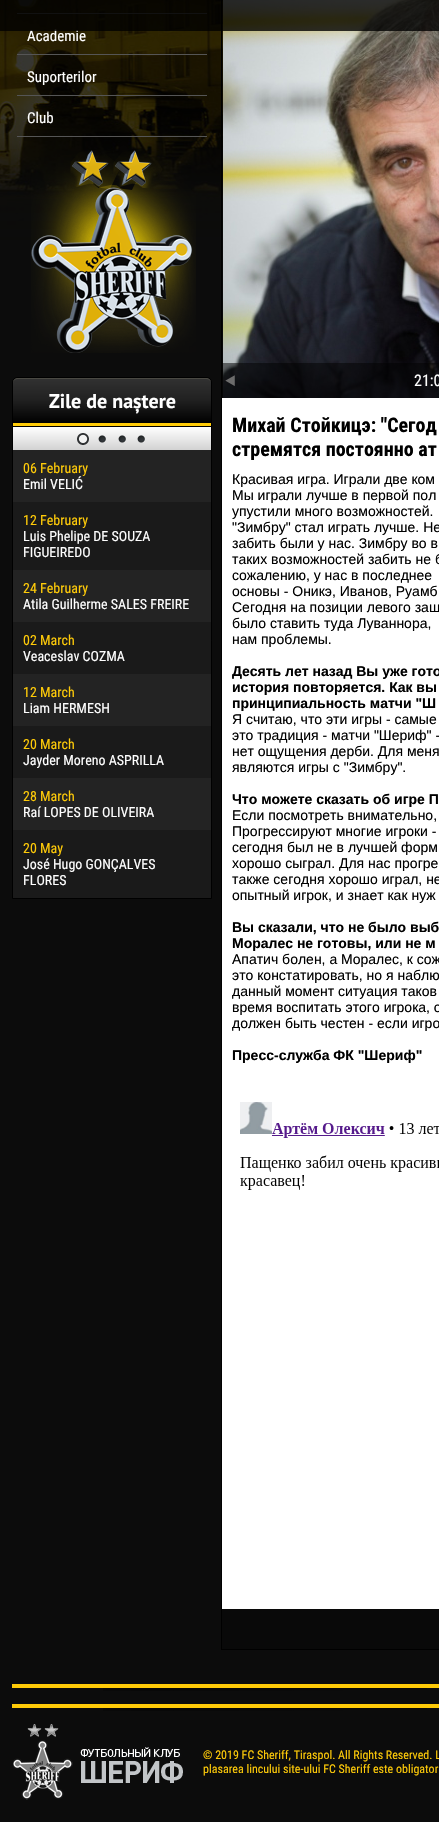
#include "include/core/SkBlurTypes.h"
#include "include/core/SkCanvas.h"
#include "include/core/SkData.h"
#include "include/core/SkFont.h"
#include "include/core/SkFontMgr.h"
#include "include/core/SkImage.h"
#include "include/core/SkMaskFilter.h"
#include "include/core/SkPaint.h"
#include "include/core/SkPathBuilder.h"
#include "include/core/SkTextBlob.h"
#include "include/effects/SkDashPathEffect.h"
#include "include/effects/SkGradientShader.h"
#include "include/utils/SkParsePath.h"

extern sk_sp<SkFontMgr> fontMgr;

void draw(SkCanvas* canvas) {
    SkPaint p;
    p.setAntiAlias(true);
    auto font = [&](const char* family, int weight, float size, bool italic = false) {
        SkFontStyle style(weight, SkFontStyle::kNormal_Width,
            italic ? SkFontStyle::kItalic_Slant : SkFontStyle::kUpright_Slant);
        SkFont result(fontMgr->matchFamilyStyle(family, style), size);
        result.setSubpixel(true);
        return result;
    };
    auto drawPhoto = [&](const char* path, float l, float t, float r, float b) {
        auto image = SkImages::DeferredFromEncodedData(SkData::MakeFromFileName(path));
        canvas->drawImageRect(image, SkRect::MakeLTRB(l, t, r, b), SkSamplingOptions());
    };
    canvas->clear(0xFF0C0C0C);
    drawPhoto("media/1.png", 0, 0, 223, 240);
    p.setColor(0xFF555555);
    canvas->drawRect(SkRect::MakeLTRB(17, 13, 207, 14), p);
    auto font1 = font("Roboto Condensed", 400, 15);
    p.setColor(0xFFFFFFFF);
    canvas->drawString("Academie", 27, 41, font1, p);
    p.setColor(0x4D000000);
    canvas->drawRect(SkRect::MakeLTRB(221.5f, -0.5f, 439.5f, 1649.5f), p);
    p.setStyle(SkPaint::kStroke_Style);
    p.setStrokeWidth(1);
    p.setColor(0xFF000000);
    canvas->drawRect(SkRect::MakeLTRB(221.5f, -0.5f, 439.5f, 1649.5f), p);
    drawPhoto("media/5.png", 223, 0, 439, 398);
    p.setStyle(SkPaint::kFill_Style);
    p.setColor(0xCC000000);
    canvas->drawRect(SkRect::MakeLTRB(0, 0, 439, 31), p);
    drawPhoto("media/2.png", 31, 150, 196, 353);
    p.setColor(0xFF555555);
    canvas->drawRect(SkRect::MakeLTRB(17, 54, 207, 55), p);
    canvas->drawRect(SkRect::MakeLTRB(17, 95, 207, 96), p);
    p.setColor(0xFFFFFFFF);
    canvas->drawString("Suporterilor", 27, 82, font1, p);
    p.setColor(0xFF555555);
    canvas->drawRect(SkRect::MakeLTRB(17, 136, 207, 137), p);
    p.setColor(0xFFFFFFFF);
    canvas->drawString("Club", 27, 123, font1, p);
    p.setColor(0xFF080808);
    canvas->drawPath(SkPathBuilder().moveTo(17, 377.5f).lineTo(207, 377.5f).cubicTo(209.5f, 377.5f, 211.5f, 379.5f, 211.5f, 382).lineTo(211.5f, 898.5f).lineTo(12.5f, 898.5f).lineTo(12.5f, 382).cubicTo(12.5f, 379.5f, 14.5f, 377.5f, 17, 377.5f).close().detach(), p);
    p.setStyle(SkPaint::kStroke_Style);
    p.setColor(0xFF000000);
    canvas->drawPath(SkPathBuilder().moveTo(17, 377.5f).lineTo(207, 377.5f).cubicTo(209.5f, 377.5f, 211.5f, 379.5f, 211.5f, 382).lineTo(211.5f, 898.5f).lineTo(12.5f, 898.5f).lineTo(12.5f, 382).cubicTo(12.5f, 379.5f, 14.5f, 377.5f, 17, 377.5f).close().detach(), p);
    canvas->save();
    canvas->clipPath(SkPathBuilder().moveTo(18, 378).lineTo(206, 378).cubicTo(209, 378, 211, 380, 211, 383).lineTo(211, 426).lineTo(13, 426).lineTo(13, 383).cubicTo(13, 380, 15, 378, 18, 378).close().detach(), true);
    p.setStyle(SkPaint::kFill_Style);
    {
        const SkColor colors[] = {0xFF313131, 0xFF212121, 0xFF000000};
        const float stops[] = {0, 0.47f, 1};
        const SkPoint ends[] = {{112, 379}, {112, 423}};
        p.setShader(SkGradientShader::MakeLinear(ends, colors, stops, 3, SkTileMode::kClamp));
        p.setAlpha(255);
    }
    canvas->drawRect(SkRect::MakeLTRB(13, 379, 211, 423), p);
    canvas->restore();
    p.setShader(nullptr);
    p.setColor(0xFF4A4943);
    canvas->drawPath(SkPathBuilder().moveTo(18, 378).lineTo(206, 378).cubicTo(209, 378, 211, 380, 211, 383).cubicTo(211, 381, 209, 379, 206, 379).lineTo(18, 379).cubicTo(15, 379, 13, 381, 13, 383).cubicTo(13, 380, 15, 378, 18, 378).close().detach(), p);
    p.setColor(0xFFFFCB08);
    canvas->drawRect(SkRect::MakeLTRB(13, 423, 211, 426), p);
    auto font2 = font("PT Sans", 700, 20);
    p.setColor(0xFFFFFFFF);
    canvas->drawString("Zile de naștere", 49, 408, font2, p);
    {
        const SkColor colors[] = {0xFFFFFFFF, 0xFFD2D2D2};
        const float stops[] = {0, 1};
        const SkPoint ends[] = {{112, 427}, {112, 450}};
        p.setShader(SkGradientShader::MakeLinear(ends, colors, stops, 2, SkTileMode::kClamp));
        p.setAlpha(255);
    }
    canvas->drawRect(SkRect::MakeLTRB(13, 427, 211, 450), p);
    p.setShader(nullptr);
    p.setColor(0xFF000000);
    canvas->drawRect(SkRect::MakeLTRB(13, 426, 211, 427), p);
    drawPhoto("media/3.png", 77, 433, 89, 445);
    drawPhoto("media/4.png", 98, 435, 106, 443);
    drawPhoto("media/4.png", 118, 435, 126, 443);
    drawPhoto("media/4.png", 137, 435, 145, 443);
    p.setColor(0xFF232323);
    canvas->drawRect(SkRect::MakeLTRB(13, 450, 211, 502), p);
    auto font3 = font("Roboto Condensed", 400, 14);
    p.setColor(0xFFFFCB08);
    canvas->drawString("06 February", 23, 473, font3, p);
    p.setColor(0xFFFFFFFF);
    canvas->drawString("Emil VELIĆ", 23, 489, font3, p);
    p.setColor(0xFF1A1A1A);
    canvas->drawRect(SkRect::MakeLTRB(13, 502, 211, 570), p);
    p.setColor(0xFFFFCB08);
    canvas->drawString("12 February", 23, 525, font3, p);
    p.setColor(0xFFFFFFFF);
    canvas->drawString("Luis Phelipe DE SOUZA", 23, 541, font3, p);
    canvas->drawString("FIGUEIREDO", 23, 557, font3, p);
    p.setColor(0xFF232323);
    canvas->drawRect(SkRect::MakeLTRB(13, 570, 211, 622), p);
    p.setColor(0xFFFFCB08);
    canvas->drawString("24 February", 23, 593, font3, p);
    p.setColor(0xFFFFFFFF);
    canvas->drawString("Atila Guilherme SALES FREIRE", 23, 609, font3, p);
    p.setColor(0xFF1A1A1A);
    canvas->drawRect(SkRect::MakeLTRB(13, 622, 211, 674), p);
    p.setColor(0xFFFFCB08);
    canvas->drawString("02 March", 23, 645, font3, p);
    p.setColor(0xFFFFFFFF);
    canvas->drawString("Veaceslav COZMA", 23, 661, font3, p);
    p.setColor(0xFF232323);
    canvas->drawRect(SkRect::MakeLTRB(13, 674, 211, 726), p);
    p.setColor(0xFFFFCB08);
    canvas->drawString("12 March", 23, 697, font3, p);
    p.setColor(0xFFFFFFFF);
    canvas->drawString("Liam HERMESH", 23, 713, font3, p);
    p.setColor(0xFF1A1A1A);
    canvas->drawRect(SkRect::MakeLTRB(13, 726, 211, 778), p);
    p.setColor(0xFFFFCB08);
    canvas->drawString("20 March", 23, 749, font3, p);
    p.setColor(0xFFFFFFFF);
    canvas->drawString("Jayder Moreno ASPRILLA", 23, 765, font3, p);
    p.setColor(0xFF232323);
    canvas->drawRect(SkRect::MakeLTRB(13, 778, 211, 830), p);
    p.setColor(0xFFFFCB08);
    canvas->drawString("28 March", 23, 801, font3, p);
    p.setColor(0xFFFFFFFF);
    canvas->drawString("Raí LOPES DE OLIVEIRA", 23, 817, font3, p);
    p.setColor(0xFF1A1A1A);
    canvas->drawRect(SkRect::MakeLTRB(13, 830, 211, 898), p);
    p.setColor(0xFFFFCB08);
    canvas->drawString("20 May", 23, 853, font3, p);
    p.setColor(0xFFFFFFFF);
    canvas->drawString("José Hugo GONÇALVES", 23, 869, font3, p);
    canvas->drawString("FLORES", 23, 885, font3, p);
    p.setColor(0x80000000);
    canvas->drawRect(SkRect::MakeLTRB(222, 363, 439, 398), p);
    drawPhoto("media/6.png", 225, 375, 235, 386);
    auto font4 = font("Roboto Condensed", 400, 16);
    p.setColor(0xFFFFFFFF);
    canvas->drawString("21:0", 414, 386, font4, p);
    canvas->drawRect(SkRect::MakeLTRB(222, 398, 439, 1609), p);
    auto font5 = font("Roboto Condensed", 700, 20);
    p.setColor(0xFF000000);
    canvas->drawString("Михай Стойкицэ: \"Сегод", 232, 432, font5, p);
    canvas->drawString("стремятся постоянно ат", 232, 456, font5, p);
    auto font6 = font("Liberation Sans", 400, 14);
    {
        const struct { const char* s; float x, y; } items[] = {
            {"Красивая игра. Играли две ком", 232, 484},
            {"Мы играли лучше в первой пол", 232, 500},
            {"упустили много возможностей.", 232, 516},
            {"\"Зимбру\" стал играть лучше. Не", 232, 532},
            {"забить были у нас. Зимбру во в", 232, 548},
            {"таких возможностей забить не б", 232, 564},
            {"сожалению, у нас в последнее", 232, 580},
            {"основы - Оникэ, Иванов, Руамб", 232, 596},
            {"Сегодня на позиции левого защ", 232, 612},
            {"было ставить туда Луваннора,", 232, 628},
            {"нам проблемы.", 232, 644},
        };
        for (auto [s, x, y] : items) {
            canvas->drawString(s, x, y, font6, p);
        }
    }
    auto font7 = font("Liberation Sans", 700, 14);
    {
        const struct { const char* s; float x, y; } items[] = {
            {"Десять лет назад Вы уже гото", 232, 676},
            {"история повторяется. Как вы", 232, 692},
            {"принципиальность матчи \"Ш", 232, 708},
        };
        for (auto [s, x, y] : items) {
            canvas->drawString(s, x, y, font7, p);
        }
    }
    {
        const struct { const char* s; float x, y; } items[] = {
            {"Я считаю, что эти игры - самые", 232, 724},
            {"это традиция - матчи \"Шериф\" -", 232, 740},
            {"нет ощущения дерби. Для меня", 232, 756},
            {"являются игры с \"Зимбру\".", 232, 772},
        };
        for (auto [s, x, y] : items) {
            canvas->drawString(s, x, y, font6, p);
        }
    }
    canvas->drawString("Что можете сказать об игре П", 232, 804, font7, p);
    {
        const struct { const char* s; float x, y; } items[] = {
            {"Если посмотреть внимательно,", 232, 820},
            {"Прогрессируют многие игроки -", 232, 836},
            {"сегодня был не в лучшей форм", 232, 852},
            {"хорошо сыграл. Для нас прогре", 232, 868},
            {"также сегодня хорошо играл, не", 232, 884},
            {"опытный игрок, и знает как нуж", 232, 900},
        };
        for (auto [s, x, y] : items) {
            canvas->drawString(s, x, y, font6, p);
        }
    }
    canvas->drawString("Вы сказали, что не было выб", 232, 932, font7, p);
    canvas->drawString("Моралес не готовы, или не м", 232, 948, font7, p);
    {
        const struct { const char* s; float x, y; } items[] = {
            {"Апатич болен, а Моралес, к сож", 232, 964},
            {"это констатировать, но я наблю", 232, 980},
            {"данный момент ситуация таков", 232, 996},
            {"время воспитать этого игрока, о", 232, 1012},
            {"должен быть честен - если игро", 232, 1028},
        };
        for (auto [s, x, y] : items) {
            canvas->drawString(s, x, y, font6, p);
        }
    }
    canvas->drawString("Пресс-служба ФК \"Шериф\"", 232, 1060, font7, p);
    drawPhoto("media/7.png", 240, 1102, 439, 1190);
    p.setColor(0xFFFFCB08);
    canvas->drawRect(SkRect::MakeLTRB(12, 1684, 439, 1688), p);
    drawPhoto("media/8.png", 103, 1688, 427, 1691);
    canvas->drawRect(SkRect::MakeLTRB(12, 1704, 439, 1708), p);
    drawPhoto("media/8.png", 103, 1708, 427, 1711);
    drawPhoto("media/9.png", 13, 1724, 183, 1800);
    auto font8 = font("Roboto Condensed", 400, 12);
    canvas->drawString("© 2019 FC Sheriff, Tiraspol. All Rights Reserved. L", 203, 1759, font8, p);
    canvas->drawString("plasarea lincului site-ului FC Sheriff este obligator", 203, 1773, font8, p);
}
